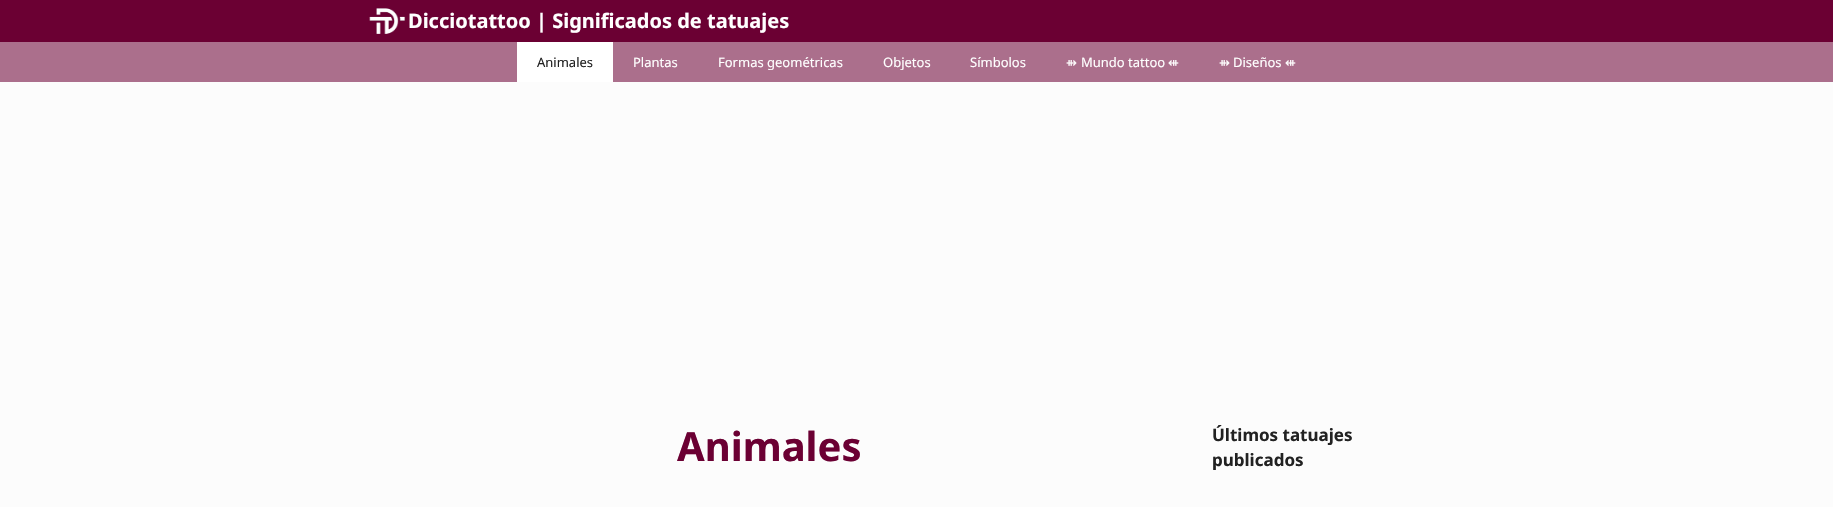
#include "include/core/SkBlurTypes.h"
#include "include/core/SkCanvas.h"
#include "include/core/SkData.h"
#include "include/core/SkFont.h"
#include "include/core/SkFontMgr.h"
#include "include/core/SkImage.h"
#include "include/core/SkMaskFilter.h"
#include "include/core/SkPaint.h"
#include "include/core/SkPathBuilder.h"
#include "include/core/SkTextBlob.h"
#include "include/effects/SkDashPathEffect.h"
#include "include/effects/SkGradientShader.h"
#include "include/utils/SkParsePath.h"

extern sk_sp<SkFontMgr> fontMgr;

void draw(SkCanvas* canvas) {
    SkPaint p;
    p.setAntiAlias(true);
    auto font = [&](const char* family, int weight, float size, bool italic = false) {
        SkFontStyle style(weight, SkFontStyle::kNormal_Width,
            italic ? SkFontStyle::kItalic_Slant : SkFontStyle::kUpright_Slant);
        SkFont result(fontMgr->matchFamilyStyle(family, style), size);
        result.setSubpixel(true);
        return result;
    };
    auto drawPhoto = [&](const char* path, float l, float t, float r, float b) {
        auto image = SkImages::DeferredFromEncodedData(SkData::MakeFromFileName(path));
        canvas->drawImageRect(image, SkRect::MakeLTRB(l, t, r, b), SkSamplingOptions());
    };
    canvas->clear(0xFFFCFCFC);
    p.setColor(0xFF6B0033);
    canvas->drawRect(SkRect::MakeLTRB(0, 0, 1833, 42), p);
    drawPhoto("media/1.png", 369, 8, 406, 34);
    auto font1 = font("Noto Sans", 700, 20);
    p.setColor(0xFFFFFFFF);
    canvas->drawString("Dicciotattoo | Significados de tatuajes", 408, 28, font1, p);
    p.setColor(0xFFAB6F8C);
    canvas->drawRect(SkRect::MakeLTRB(0, 42, 1833, 82), p);
    p.setColor(0xFFFFFFFF);
    canvas->drawRect(SkRect::MakeLTRB(517, 42, 613, 82), p);
    auto font2 = font("Noto Sans", 400, 13);
    p.setColor(0xFF222222);
    canvas->drawString("Animales", 537, 67, font2, p);
    p.setColor(0xFFFFFFFF);
    {
        const struct { const char* s; float x, y; } items[] = {
            {"Plantas", 633, 67},
            {"Formas geométricas", 718, 67},
            {"Objetos", 883, 67},
            {"Símbolos", 970, 67},
        };
        for (auto [s, x, y] : items) {
            canvas->drawString(s, x, y, font2, p);
        }
    }
    auto font3 = font("DejaVu Sans", 400, 13);
    canvas->drawString("⇻", 1066, 67, font3, p);
    canvas->drawString("Mundo tattoo", 1081, 67, font2, p);
    canvas->drawString("⇺", 1168, 67, font3, p);
    canvas->drawString("⇻", 1219, 67, font3, p);
    canvas->drawString("Diseños", 1233, 67, font2, p);
    canvas->drawString("⇺", 1285, 67, font3, p);
    auto font4 = font("Noto Sans", 700, 40);
    p.setColor(0xFF6B0033);
    canvas->drawString("Animales", 677, 461, font4, p);
    auto font5 = font("Noto Sans", 700, 17);
    p.setColor(0xFF222222);
    canvas->drawString("Últimos tatuajes", 1212, 441, font5, p);
    canvas->drawString("publicados", 1212, 466, font5, p);
}
